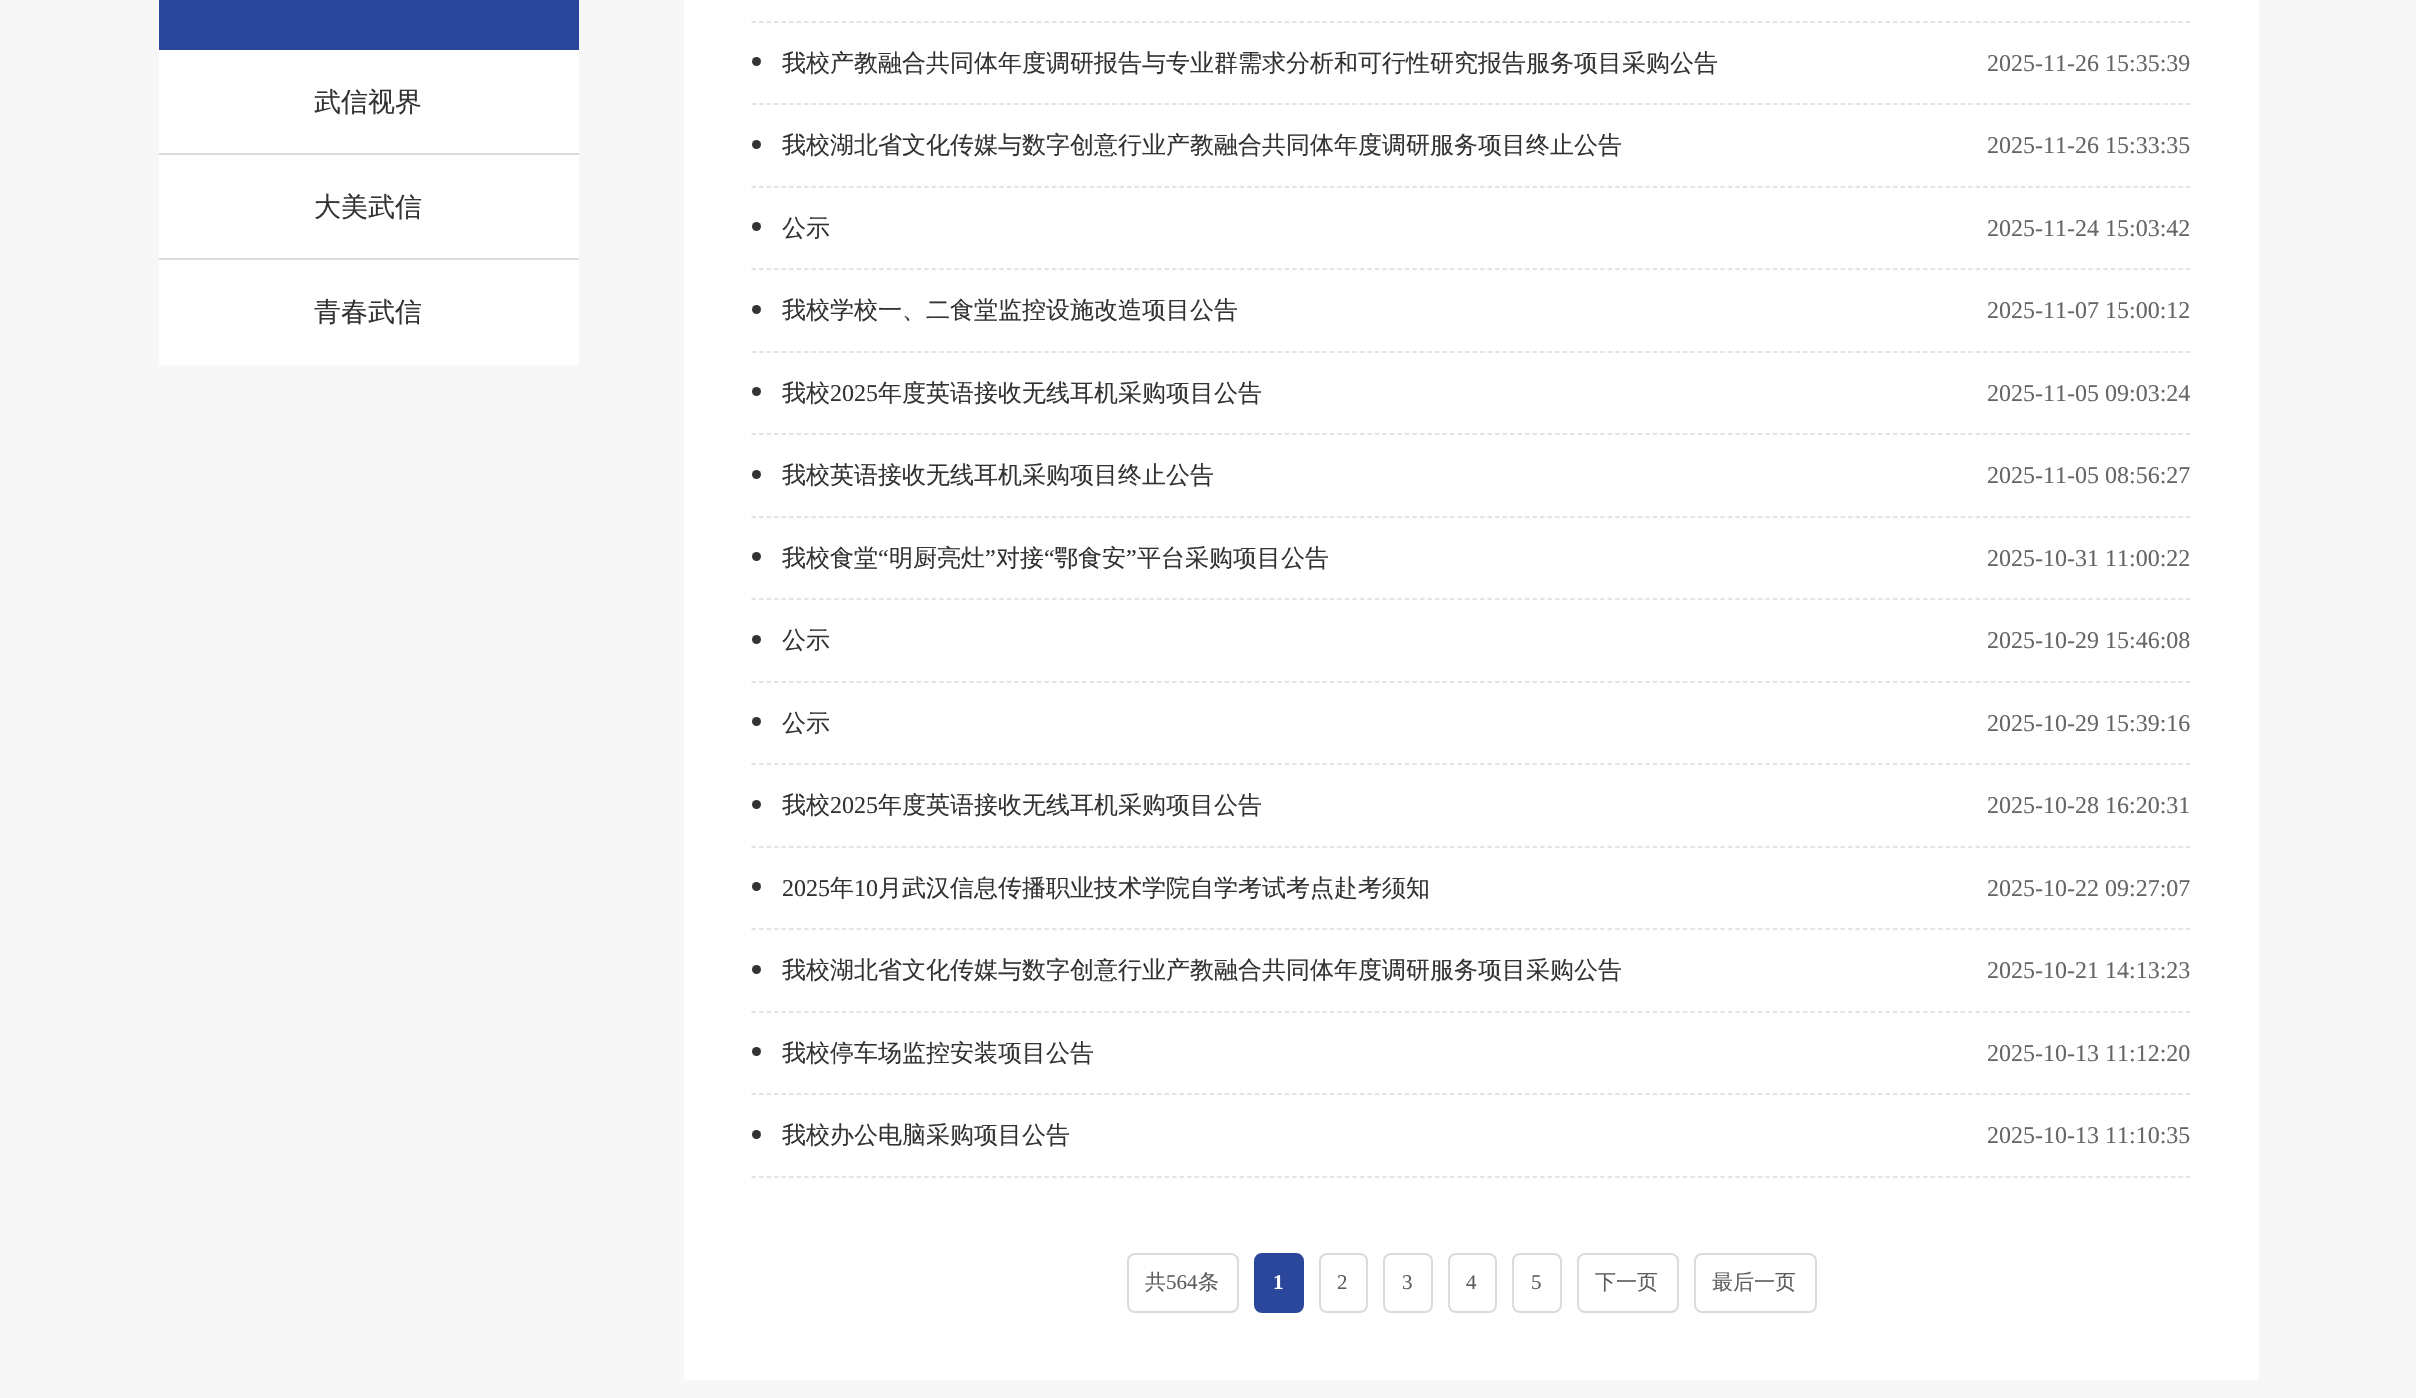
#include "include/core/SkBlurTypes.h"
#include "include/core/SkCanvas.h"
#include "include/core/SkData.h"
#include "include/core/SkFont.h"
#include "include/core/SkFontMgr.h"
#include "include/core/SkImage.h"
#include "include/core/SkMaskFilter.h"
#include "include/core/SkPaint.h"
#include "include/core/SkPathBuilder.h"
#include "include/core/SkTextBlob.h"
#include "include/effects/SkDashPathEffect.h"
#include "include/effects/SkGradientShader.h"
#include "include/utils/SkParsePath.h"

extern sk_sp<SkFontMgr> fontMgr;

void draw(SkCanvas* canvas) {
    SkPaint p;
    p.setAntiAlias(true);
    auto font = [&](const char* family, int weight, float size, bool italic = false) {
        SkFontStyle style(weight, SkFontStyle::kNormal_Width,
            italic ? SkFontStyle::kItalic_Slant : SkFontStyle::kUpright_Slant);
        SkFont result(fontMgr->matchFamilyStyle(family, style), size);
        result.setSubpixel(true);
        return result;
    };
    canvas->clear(0xFFF7F7F7);
    {
        const struct { float l, t, r, b; SkColor color; } items[] = {
            {159, 50, 579, 365, 0xFFFFFFFF},
            {159, 0, 579, 50, 0xFF2B479B},
            {159, 153, 579, 155, 0xFFDBDBDB},
        };
        for (auto [l, t, r, b, color] : items) {
            p.setColor(color);
            canvas->drawRect(SkRect::MakeLTRB(l, t, r, b), p);
        }
    }
    auto font1 = font("WenQuanYi Zen Hei", 500, 27);
    p.setColor(0xFF333333);
    canvas->drawString("武信视界", 314, 111, font1, p);
    p.setColor(0xFFDBDBDB);
    canvas->drawRect(SkRect::MakeLTRB(159, 258, 579, 260), p);
    p.setColor(0xFF333333);
    canvas->drawString("大美武信", 314, 216, font1, p);
    canvas->drawString("青春武信", 314, 321, font1, p);
    p.setColor(0xFFFFFFFF);
    canvas->drawRect(SkRect::MakeLTRB(684, 0, 2259, 1380), p);
    p.setStyle(SkPaint::kStroke_Style);
    p.setStrokeWidth(1.5f);
    p.setColor(0xFFDBDBDB);
    p.setPathEffect(SkDashPathEffect::Make({{4.5f, 3.01f}}, 0));
    canvas->drawPath(SkPathBuilder().moveTo(751.5f, 22).lineTo(2191.5f, 22).detach(), p);
    p.setPathEffect(nullptr);
    p.setPathEffect(SkDashPathEffect::Make({{4.5f, 3.01f}}, 0));
    canvas->drawPath(SkPathBuilder().moveTo(751.5f, 104).lineTo(2191.5f, 104).detach(), p);
    p.setPathEffect(nullptr);
    p.setStyle(SkPaint::kFill_Style);
    p.setColor(0xFF333333);
    canvas->drawCircle(756.5f, 61.5f, 4.5f, p);
    auto font2 = font("WenQuanYi Zen Hei", 500, 24);
    canvas->drawString("我校产教融合共同体年度调研报告与专业群需求分析和可行性研究报告服务项目采购公告", 782, 71, font2, p);
    auto font3 = font("Liberation Serif", 400, 24);
    p.setColor(0xFF666666);
    canvas->drawString("2025-11-26 15:35:39", 1987, 71, font3, p);
    p.setStyle(SkPaint::kStroke_Style);
    p.setColor(0xFFDBDBDB);
    p.setPathEffect(SkDashPathEffect::Make({{4.5f, 3.01f}}, 0));
    canvas->drawPath(SkPathBuilder().moveTo(751.5f, 187).lineTo(2191.5f, 187).detach(), p);
    p.setPathEffect(nullptr);
    p.setStyle(SkPaint::kFill_Style);
    p.setColor(0xFF333333);
    canvas->drawCircle(756.5f, 144.5f, 4.5f, p);
    canvas->drawString("我校湖北省文化传媒与数字创意行业产教融合共同体年度调研服务项目终止公告", 782, 153, font2, p);
    p.setColor(0xFF666666);
    canvas->drawString("2025-11-26 15:33:35", 1987, 153, font3, p);
    p.setStyle(SkPaint::kStroke_Style);
    p.setColor(0xFFDBDBDB);
    p.setPathEffect(SkDashPathEffect::Make({{4.5f, 3.01f}}, 0));
    canvas->drawPath(SkPathBuilder().moveTo(751.5f, 269).lineTo(2191.5f, 269).detach(), p);
    p.setPathEffect(nullptr);
    p.setStyle(SkPaint::kFill_Style);
    p.setColor(0xFF333333);
    canvas->drawCircle(756.5f, 226.5f, 4.5f, p);
    canvas->drawString("公示", 782, 236, font2, p);
    p.setColor(0xFF666666);
    canvas->drawString("2025-11-24 15:03:42", 1987, 236, font3, p);
    p.setStyle(SkPaint::kStroke_Style);
    p.setColor(0xFFDBDBDB);
    p.setPathEffect(SkDashPathEffect::Make({{4.5f, 3.01f}}, 0));
    canvas->drawPath(SkPathBuilder().moveTo(751.5f, 352).lineTo(2191.5f, 352).detach(), p);
    p.setPathEffect(nullptr);
    p.setStyle(SkPaint::kFill_Style);
    p.setColor(0xFF333333);
    canvas->drawCircle(756.5f, 309.5f, 4.5f, p);
    canvas->drawString("我校学校一、二食堂监控设施改造项目公告", 782, 318, font2, p);
    p.setColor(0xFF666666);
    canvas->drawString("2025-11-07 15:00:12", 1987, 318, font3, p);
    p.setStyle(SkPaint::kStroke_Style);
    p.setColor(0xFFDBDBDB);
    p.setPathEffect(SkDashPathEffect::Make({{4.5f, 3.01f}}, 0));
    canvas->drawPath(SkPathBuilder().moveTo(751.5f, 434).lineTo(2191.5f, 434).detach(), p);
    p.setPathEffect(nullptr);
    p.setStyle(SkPaint::kFill_Style);
    p.setColor(0xFF333333);
    canvas->drawCircle(756.5f, 391.5f, 4.5f, p);
    canvas->drawString("我校", 782, 401, font2, p);
    canvas->drawString("2025", 830, 401, font3, p);
    canvas->drawString("年度英语接收无线耳机采购项目公告", 878, 401, font2, p);
    p.setColor(0xFF666666);
    canvas->drawString("2025-11-05 09:03:24", 1987, 401, font3, p);
    p.setStyle(SkPaint::kStroke_Style);
    p.setColor(0xFFDBDBDB);
    p.setPathEffect(SkDashPathEffect::Make({{4.5f, 3.01f}}, 0));
    canvas->drawPath(SkPathBuilder().moveTo(751.5f, 517).lineTo(2191.5f, 517).detach(), p);
    p.setPathEffect(nullptr);
    p.setStyle(SkPaint::kFill_Style);
    p.setColor(0xFF333333);
    canvas->drawCircle(756.5f, 474.5f, 4.5f, p);
    canvas->drawString("我校英语接收无线耳机采购项目终止公告", 782, 483, font2, p);
    p.setColor(0xFF666666);
    canvas->drawString("2025-11-05 08:56:27", 1987, 483, font3, p);
    p.setStyle(SkPaint::kStroke_Style);
    p.setColor(0xFFDBDBDB);
    p.setPathEffect(SkDashPathEffect::Make({{4.5f, 3.01f}}, 0));
    canvas->drawPath(SkPathBuilder().moveTo(751.5f, 599).lineTo(2191.5f, 599).detach(), p);
    p.setPathEffect(nullptr);
    p.setStyle(SkPaint::kFill_Style);
    p.setColor(0xFF333333);
    canvas->drawCircle(756.5f, 556.5f, 4.5f, p);
    canvas->drawString("我校食堂", 782, 566, font2, p);
    canvas->drawString("“", 878, 566, font3, p);
    canvas->drawString("明厨亮灶", 889, 566, font2, p);
    canvas->drawString("”", 985, 566, font3, p);
    canvas->drawString("对接", 996, 566, font2, p);
    canvas->drawString("“", 1044, 566, font3, p);
    canvas->drawString("鄂食安", 1054, 566, font2, p);
    canvas->drawString("”", 1126, 566, font3, p);
    canvas->drawString("平台采购项目公告", 1137, 566, font2, p);
    p.setColor(0xFF666666);
    canvas->drawString("2025-10-31 11:00:22", 1987, 566, font3, p);
    p.setStyle(SkPaint::kStroke_Style);
    p.setColor(0xFFDBDBDB);
    p.setPathEffect(SkDashPathEffect::Make({{4.5f, 3.01f}}, 0));
    canvas->drawPath(SkPathBuilder().moveTo(751.5f, 682).lineTo(2191.5f, 682).detach(), p);
    p.setPathEffect(nullptr);
    p.setStyle(SkPaint::kFill_Style);
    p.setColor(0xFF333333);
    canvas->drawCircle(756.5f, 639.5f, 4.5f, p);
    canvas->drawString("公示", 782, 648, font2, p);
    p.setColor(0xFF666666);
    canvas->drawString("2025-10-29 15:46:08", 1987, 648, font3, p);
    p.setStyle(SkPaint::kStroke_Style);
    p.setColor(0xFFDBDBDB);
    p.setPathEffect(SkDashPathEffect::Make({{4.5f, 3.01f}}, 0));
    canvas->drawPath(SkPathBuilder().moveTo(751.5f, 764).lineTo(2191.5f, 764).detach(), p);
    p.setPathEffect(nullptr);
    p.setStyle(SkPaint::kFill_Style);
    p.setColor(0xFF333333);
    canvas->drawCircle(756.5f, 721.5f, 4.5f, p);
    canvas->drawString("公示", 782, 731, font2, p);
    p.setColor(0xFF666666);
    canvas->drawString("2025-10-29 15:39:16", 1987, 731, font3, p);
    p.setStyle(SkPaint::kStroke_Style);
    p.setColor(0xFFDBDBDB);
    p.setPathEffect(SkDashPathEffect::Make({{4.5f, 3.01f}}, 0));
    canvas->drawPath(SkPathBuilder().moveTo(751.5f, 847).lineTo(2191.5f, 847).detach(), p);
    p.setPathEffect(nullptr);
    p.setStyle(SkPaint::kFill_Style);
    p.setColor(0xFF333333);
    canvas->drawCircle(756.5f, 804.5f, 4.5f, p);
    canvas->drawString("我校", 782, 813, font2, p);
    canvas->drawString("2025", 830, 813, font3, p);
    canvas->drawString("年度英语接收无线耳机采购项目公告", 878, 813, font2, p);
    p.setColor(0xFF666666);
    canvas->drawString("2025-10-28 16:20:31", 1987, 813, font3, p);
    p.setStyle(SkPaint::kStroke_Style);
    p.setColor(0xFFDBDBDB);
    p.setPathEffect(SkDashPathEffect::Make({{4.5f, 3.01f}}, 0));
    canvas->drawPath(SkPathBuilder().moveTo(751.5f, 929).lineTo(2191.5f, 929).detach(), p);
    p.setPathEffect(nullptr);
    p.setStyle(SkPaint::kFill_Style);
    p.setColor(0xFF333333);
    canvas->drawCircle(756.5f, 886.5f, 4.5f, p);
    canvas->drawString("2025", 782, 896, font3, p);
    canvas->drawString("年", 830, 896, font2, p);
    canvas->drawString("10", 854, 896, font3, p);
    canvas->drawString("月武汉信息传播职业技术学院自学考试考点赴考须知", 878, 896, font2, p);
    p.setColor(0xFF666666);
    canvas->drawString("2025-10-22 09:27:07", 1987, 896, font3, p);
    p.setStyle(SkPaint::kStroke_Style);
    p.setColor(0xFFDBDBDB);
    p.setPathEffect(SkDashPathEffect::Make({{4.5f, 3.01f}}, 0));
    canvas->drawPath(SkPathBuilder().moveTo(751.5f, 1012).lineTo(2191.5f, 1012).detach(), p);
    p.setPathEffect(nullptr);
    p.setStyle(SkPaint::kFill_Style);
    p.setColor(0xFF333333);
    canvas->drawCircle(756.5f, 969.5f, 4.5f, p);
    canvas->drawString("我校湖北省文化传媒与数字创意行业产教融合共同体年度调研服务项目采购公告", 782, 978, font2, p);
    p.setColor(0xFF666666);
    canvas->drawString("2025-10-21 14:13:23", 1987, 978, font3, p);
    p.setStyle(SkPaint::kStroke_Style);
    p.setColor(0xFFDBDBDB);
    p.setPathEffect(SkDashPathEffect::Make({{4.5f, 3.01f}}, 0));
    canvas->drawPath(SkPathBuilder().moveTo(751.5f, 1094).lineTo(2191.5f, 1094).detach(), p);
    p.setPathEffect(nullptr);
    p.setStyle(SkPaint::kFill_Style);
    p.setColor(0xFF333333);
    canvas->drawCircle(756.5f, 1051.5f, 4.5f, p);
    canvas->drawString("我校停车场监控安装项目公告", 782, 1061, font2, p);
    p.setColor(0xFF666666);
    canvas->drawString("2025-10-13 11:12:20", 1987, 1061, font3, p);
    p.setStyle(SkPaint::kStroke_Style);
    p.setColor(0xFFDBDBDB);
    p.setPathEffect(SkDashPathEffect::Make({{4.5f, 3.01f}}, 0));
    canvas->drawPath(SkPathBuilder().moveTo(751.5f, 1177).lineTo(2191.5f, 1177).detach(), p);
    p.setPathEffect(nullptr);
    p.setStyle(SkPaint::kFill_Style);
    p.setColor(0xFF333333);
    canvas->drawCircle(756.5f, 1134.5f, 4.5f, p);
    canvas->drawString("我校办公电脑采购项目公告", 782, 1143, font2, p);
    p.setColor(0xFF666666);
    canvas->drawString("2025-10-13 11:10:35", 1987, 1143, font3, p);
    p.setStyle(SkPaint::kStroke_Style);
    p.setStrokeWidth(2);
    p.setColor(0xFFDBDBDB);
    canvas->drawRoundRect(SkRect::MakeLTRB(1128, 1254, 1238, 1312), 7, 7, p);
    auto font4 = font("WenQuanYi Zen Hei", 500, 21);
    p.setStyle(SkPaint::kFill_Style);
    p.setColor(0xFF5D5D5D);
    canvas->drawString("共", 1145, 1289, font4, p);
    auto font5 = font("Liberation Serif", 400, 21);
    canvas->drawString("564", 1166, 1289, font5, p);
    canvas->drawString("条", 1198, 1289, font4, p);
    p.setColor(0xFF2B479B);
    canvas->drawRoundRect(SkRect::MakeLTRB(1255, 1254, 1303, 1312), 7, 7, p);
    p.setStyle(SkPaint::kStroke_Style);
    canvas->drawRoundRect(SkRect::MakeLTRB(1255, 1254, 1303, 1312), 7, 7, p);
    auto font6 = font("Liberation Serif", 700, 21);
    p.setStyle(SkPaint::kFill_Style);
    p.setColor(0xFFFFFFFF);
    canvas->drawString("1", 1273, 1289, font6, p);
    p.setStyle(SkPaint::kStroke_Style);
    p.setColor(0xFFDBDBDB);
    canvas->drawRoundRect(SkRect::MakeLTRB(1320, 1254, 1367, 1312), 7, 7, p);
    p.setStyle(SkPaint::kFill_Style);
    p.setColor(0xFF5D5D5D);
    canvas->drawString("2", 1337, 1289, font5, p);
    p.setStyle(SkPaint::kStroke_Style);
    p.setColor(0xFFDBDBDB);
    canvas->drawRoundRect(SkRect::MakeLTRB(1384, 1254, 1432, 1312), 7, 7, p);
    p.setStyle(SkPaint::kFill_Style);
    p.setColor(0xFF5D5D5D);
    canvas->drawString("3", 1402, 1289, font5, p);
    p.setStyle(SkPaint::kStroke_Style);
    p.setColor(0xFFDBDBDB);
    canvas->drawRoundRect(SkRect::MakeLTRB(1449, 1254, 1496, 1312), 7, 7, p);
    p.setStyle(SkPaint::kFill_Style);
    p.setColor(0xFF5D5D5D);
    canvas->drawString("4", 1466, 1289, font5, p);
    p.setStyle(SkPaint::kStroke_Style);
    p.setColor(0xFFDBDBDB);
    canvas->drawRoundRect(SkRect::MakeLTRB(1513, 1254, 1561, 1312), 7, 7, p);
    p.setStyle(SkPaint::kFill_Style);
    p.setColor(0xFF5D5D5D);
    canvas->drawString("5", 1531, 1289, font5, p);
    p.setStyle(SkPaint::kStroke_Style);
    p.setColor(0xFFDBDBDB);
    canvas->drawRoundRect(SkRect::MakeLTRB(1578, 1254, 1678, 1312), 7, 7, p);
    p.setStyle(SkPaint::kFill_Style);
    p.setColor(0xFF5D5D5D);
    canvas->drawString("下一页", 1595, 1289, font4, p);
    p.setStyle(SkPaint::kStroke_Style);
    p.setColor(0xFFDBDBDB);
    canvas->drawRoundRect(SkRect::MakeLTRB(1695, 1254, 1816, 1312), 7, 7, p);
    p.setStyle(SkPaint::kFill_Style);
    p.setColor(0xFF5D5D5D);
    canvas->drawString("最后一页", 1712, 1289, font4, p);
}
